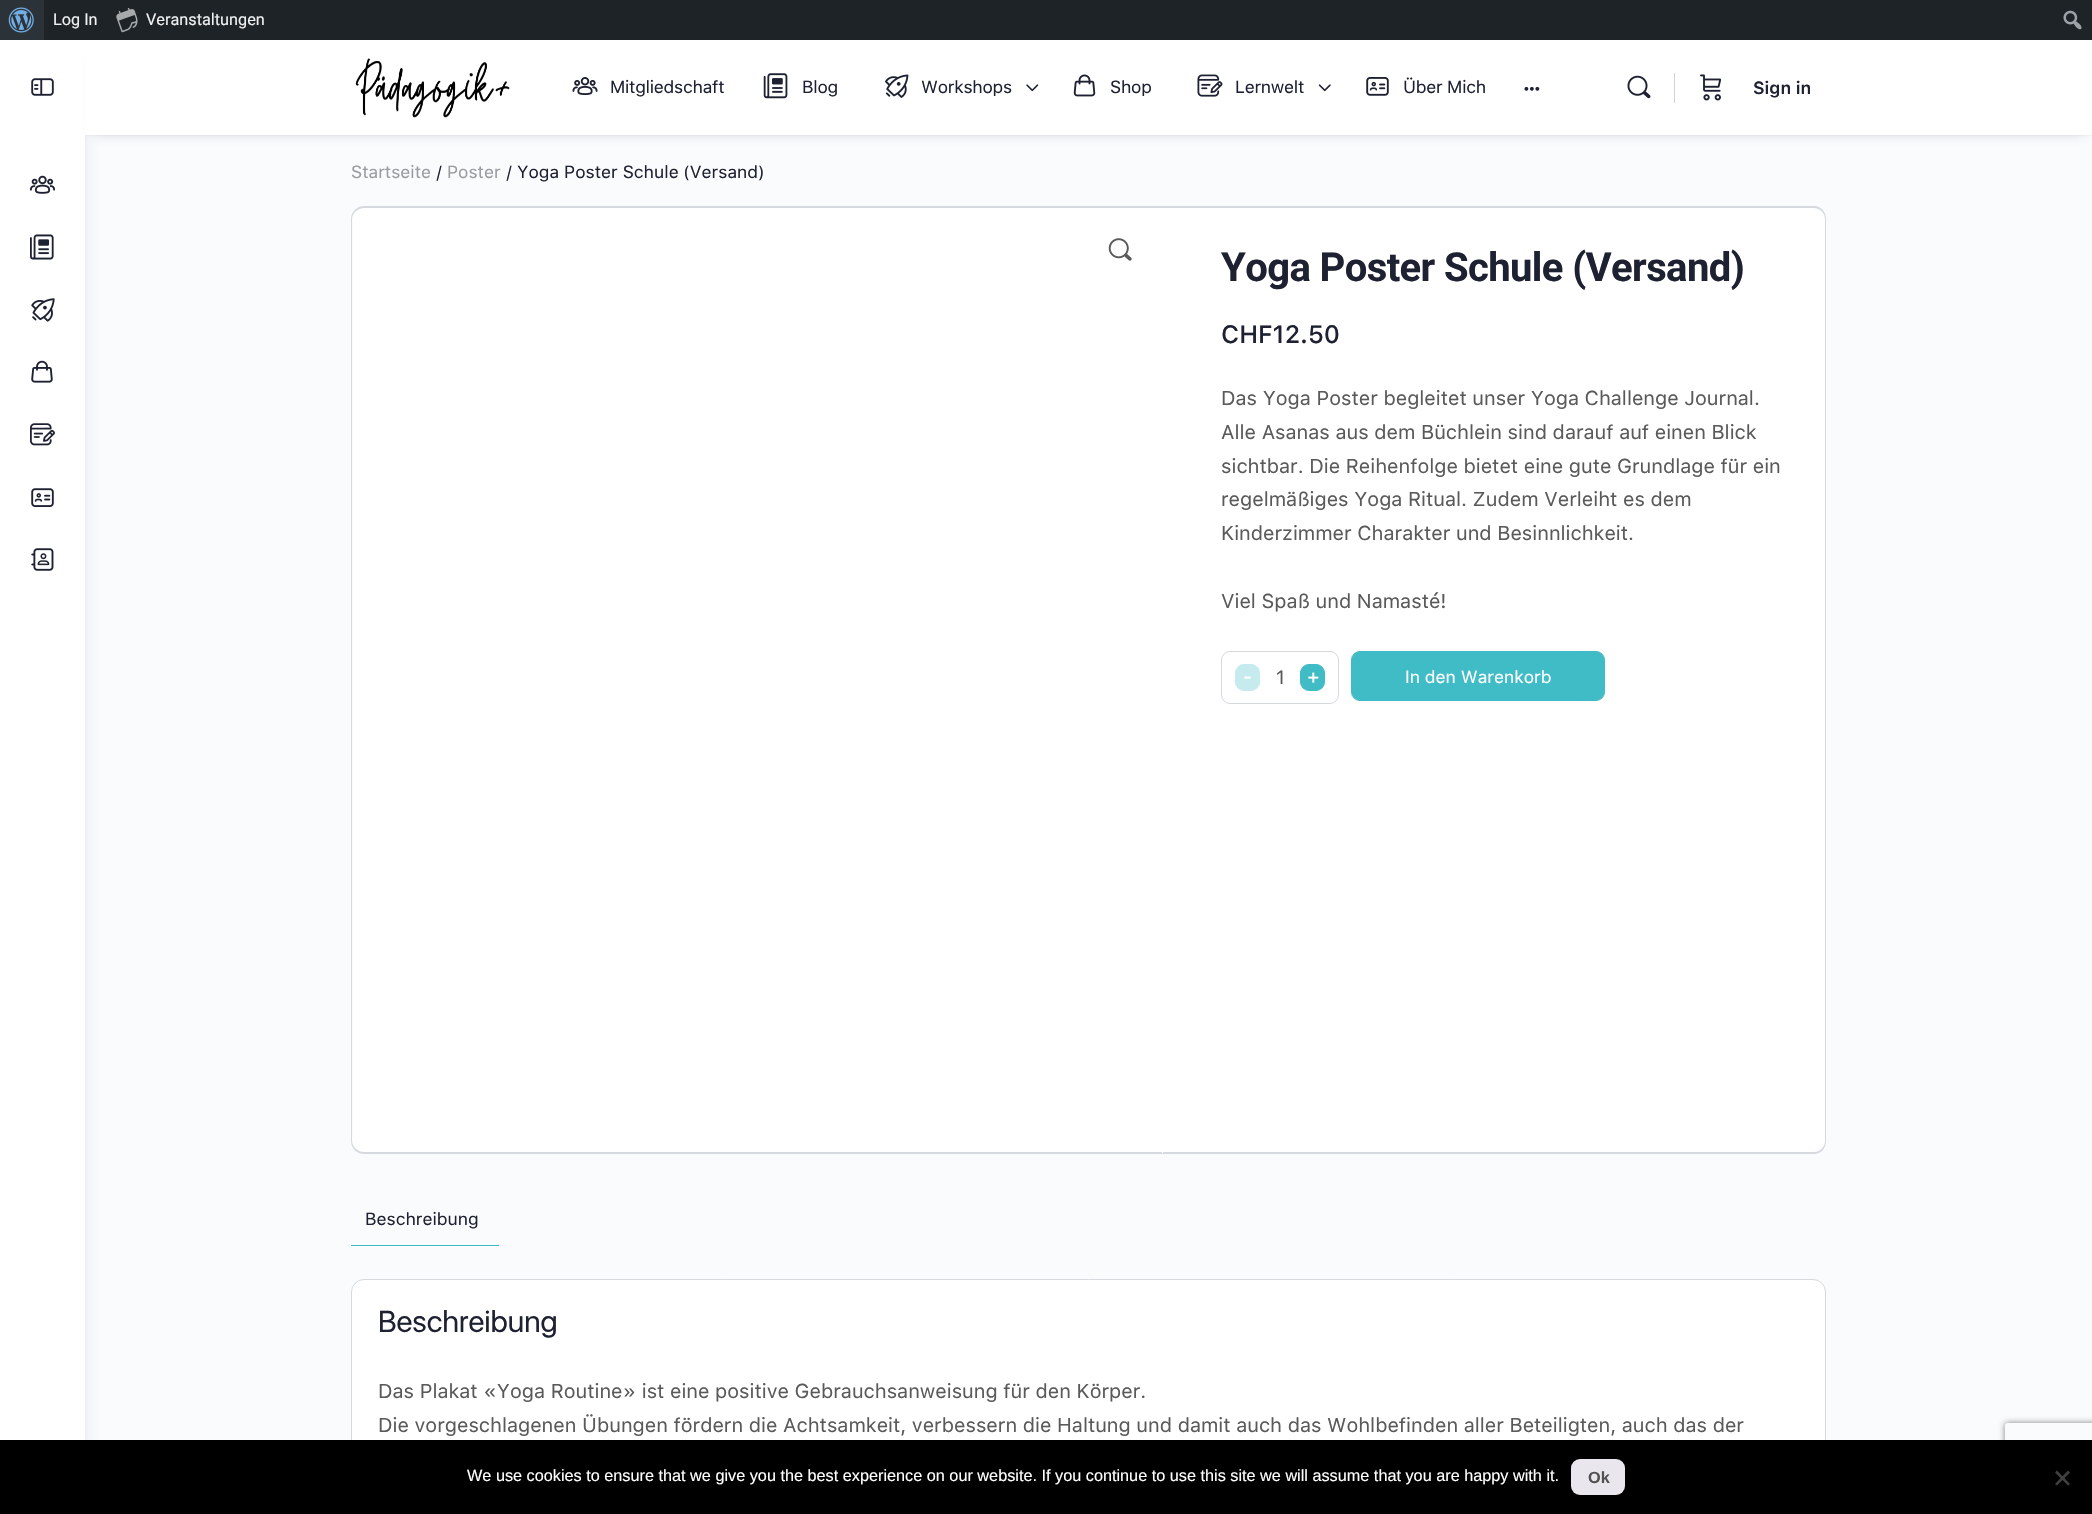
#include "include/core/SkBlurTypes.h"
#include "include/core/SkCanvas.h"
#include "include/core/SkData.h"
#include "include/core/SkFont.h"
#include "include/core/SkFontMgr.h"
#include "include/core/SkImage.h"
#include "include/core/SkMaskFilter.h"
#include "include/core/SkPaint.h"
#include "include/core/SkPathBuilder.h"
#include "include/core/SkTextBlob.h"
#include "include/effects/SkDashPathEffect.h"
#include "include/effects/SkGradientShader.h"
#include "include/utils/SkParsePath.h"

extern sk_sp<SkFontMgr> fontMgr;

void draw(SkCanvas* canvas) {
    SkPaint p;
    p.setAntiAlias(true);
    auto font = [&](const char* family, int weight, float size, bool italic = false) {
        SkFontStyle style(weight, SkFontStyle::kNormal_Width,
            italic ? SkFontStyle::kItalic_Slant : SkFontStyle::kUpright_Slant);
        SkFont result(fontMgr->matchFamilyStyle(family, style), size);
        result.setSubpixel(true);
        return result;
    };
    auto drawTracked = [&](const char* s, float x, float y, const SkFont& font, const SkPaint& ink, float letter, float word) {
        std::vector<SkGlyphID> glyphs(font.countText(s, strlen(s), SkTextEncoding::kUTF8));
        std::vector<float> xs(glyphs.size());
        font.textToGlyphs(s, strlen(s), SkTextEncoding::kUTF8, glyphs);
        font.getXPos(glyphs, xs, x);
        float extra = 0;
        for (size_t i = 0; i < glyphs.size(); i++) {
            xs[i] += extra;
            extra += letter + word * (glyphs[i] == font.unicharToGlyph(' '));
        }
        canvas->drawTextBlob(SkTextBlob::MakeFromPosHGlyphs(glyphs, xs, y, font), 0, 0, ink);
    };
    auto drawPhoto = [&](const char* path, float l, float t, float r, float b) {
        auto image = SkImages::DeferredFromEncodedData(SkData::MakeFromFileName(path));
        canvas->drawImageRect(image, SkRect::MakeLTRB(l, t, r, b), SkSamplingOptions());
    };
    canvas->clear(0xFFFAFBFD);
    p.setColor(0x1A122B46);
    p.setMaskFilter(SkMaskFilter::MakeBlur(kNormal_SkBlurStyle, 8));
    canvas->drawRect(SkRect::MakeLTRB(0, 44, 85, 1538), p);
    p.setMaskFilter(nullptr);
    p.setColor(0xFFFFFFFF);
    canvas->drawRect(SkRect::MakeLTRB(0, 40, 85, 1440), p);
    p.setColor(0x4041476C);
    p.setMaskFilter(SkMaskFilter::MakeBlur(kNormal_SkBlurStyle, 6));
    canvas->drawRect(SkRect::MakeLTRB(94, 55, 2084, 133), p);
    p.setMaskFilter(nullptr);
    p.setColor(0xFF1D2327);
    canvas->drawRect(SkRect::MakeLTRB(44, 0, 2092, 40), p);
    p.setColor(0xFF2C3338);
    canvas->drawRect(SkRect::MakeLTRB(0, 0, 44, 40), p);
    drawPhoto("media/1.png", 8, 7, 34, 33);
    auto font1 = font("Roboto", 400, 16.25f);
    p.setColor(0xFFF0F0F1);
    canvas->drawString("Log In", 53, 25, font1, p);
    drawPhoto("media/2.png", 116, 8, 138, 33);
    canvas->drawString("Veranstaltungen", 146, 25, font1, p);
    drawPhoto("media/3.png", 2063, 10, 2082, 30);
    drawPhoto("media/4.png", 31, 78, 54, 96);
    drawPhoto("media/5.png", 30, 175, 55, 194);
    drawPhoto("media/6.png", 30, 234, 54, 260);
    drawPhoto("media/7.png", 31, 298, 55, 322);
    drawPhoto("media/8.png", 31, 360, 53, 383);
    drawPhoto("media/9.png", 30, 423, 55, 446);
    drawPhoto("media/10.png", 31, 488, 54, 507);
    drawPhoto("media/11.png", 31, 548, 54, 571);
    p.setColor(0x0D8B8D9D);
    canvas->drawPath(SkPathBuilder().moveTo(85, 135).lineTo(85, 136).lineTo(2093, 136).lineTo(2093, 41).lineTo(2092, 41).lineTo(2092, 135).close().detach(), p);
    p.setColor(0xFFFFFFFF);
    canvas->drawRect(SkRect::MakeLTRB(85, 40, 2092, 135), p);
    drawPhoto("media/12.png", 355, 58, 510, 118);
    drawPhoto("media/13.png", 572, 77, 598, 96);
    auto font2 = font("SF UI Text", 400, 17.5f);
    p.setColor(0xFF1E2132);
    drawTracked("Mitgliedschaft", 610, 93, font2, p, -0.25f, 0);
    drawPhoto("media/14.png", 763, 73, 788, 99);
    drawTracked("Blog", 802, 93, font2, p, -0.25f, 0);
    drawPhoto("media/15.png", 885, 74, 909, 98);
    drawTracked("Workshops", 921, 93, font2, p, -0.25f, 0);
    drawPhoto("media/16.png", 1026, 84, 1039, 92);
    drawPhoto("media/17.png", 1073, 74, 1096, 97);
    drawTracked("Shop", 1110, 93, font2, p, -0.25f, 0);
    drawPhoto("media/18.png", 1197, 74, 1223, 97);
    drawTracked("Lernwelt", 1235, 93, font2, p, -0.25f, 0);
    drawPhoto("media/19.png", 1318, 84, 1331, 92);
    drawPhoto("media/20.png", 1366, 77, 1389, 96);
    drawTracked("Über Mich", 1403, 93, font2, p, -0.25f, 0);
    drawPhoto("media/21.png", 1524, 86, 1540, 91);
    drawPhoto("media/22.png", 1627, 75, 1651, 99);
    p.setColor(0xFFD2D3D6);
    canvas->drawRect(SkRect::MakeLTRB(1674, 73, 1675, 103), p);
    drawPhoto("media/23.png", 1700, 74, 1722, 101);
    auto font3 = font("SF UI Text", 600, 17.5f);
    p.setColor(0xFF1E2132);
    canvas->drawString("Sign in", 1753, 94, font3, p);
    p.setColor(0xFF9B9C9F);
    canvas->drawString("Startseite", 351, 178, font2, p);
    p.setColor(0xFF1E2132);
    canvas->drawString("/", 436, 178, font2, p);
    p.setColor(0xFF9B9C9F);
    canvas->drawString("Poster", 447, 178, font2, p);
    p.setColor(0xFF1E2132);
    canvas->drawString("/ Yoga Poster Schule (Versand)", 506, 178, font2, p);
    p.setColor(0xFFFFFFFF);
    canvas->drawPath(SkPathBuilder().moveTo(1163, 208).lineTo(1814, 208).cubicTo(1820, 208, 1825, 213, 1825, 219).lineTo(1825, 1142).cubicTo(1825, 1148, 1820, 1153, 1814, 1153).lineTo(1163, 1153).close().detach(), p);
    p.setColor(0xFFD6D9DD);
    canvas->drawPath(SkPathBuilder(SkPathFillType::kEvenOdd).moveTo(1162, 206).lineTo(1814, 206).cubicTo(1821, 206, 1826, 212, 1826, 219).lineTo(1826, 1141).cubicTo(1826, 1148, 1821, 1154, 1814, 1154).lineTo(1162, 1154).close().moveTo(1162, 208).lineTo(1814, 208).cubicTo(1820, 208, 1825, 213, 1825, 219).lineTo(1825, 1141).cubicTo(1825, 1147, 1820, 1152, 1814, 1152).lineTo(1162, 1152).close().detach(), p);
    p.setColor(0xFFFFFFFF);
    canvas->drawPath(SkPathBuilder().moveTo(364, 208).lineTo(1163, 208).lineTo(1163, 1153).lineTo(364, 1153).cubicTo(358, 1153, 353, 1148, 353, 1142).lineTo(353, 219).cubicTo(353, 213, 358, 208, 364, 208).close().detach(), p);
    p.setColor(0xFFD6D9DD);
    canvas->drawPath(SkPathBuilder(SkPathFillType::kEvenOdd).moveTo(364, 206).lineTo(1162, 206).lineTo(1162, 1154).lineTo(364, 1154).cubicTo(357, 1154, 351, 1148, 351, 1141).lineTo(351, 219).cubicTo(351, 212, 357, 206, 364, 206).close().moveTo(364, 208).lineTo(1162, 208).lineTo(1162, 1152).lineTo(364, 1152).cubicTo(358, 1152, 352, 1147, 352, 1141).lineTo(352, 219).cubicTo(352, 213, 358, 208, 364, 208).close().detach(), p);
    drawPhoto("media/24.png", 1108, 238, 1132, 261);
    auto font4 = font("Roboto", 700, 40);
    p.setColor(0xFF1E2132);
    drawTracked("Yoga Poster Schule (Versand)", 1221, 281, font4, p, -0.6f, 0);
    auto font5 = font("SF UI Text", 500, 25);
    canvas->drawString("CHF12.50", 1221, 343, font5, p);
    auto font6 = font("SF UI Text", 400, 20);
    p.setColor(0xFF5A5A5A);
    {
        const struct { const char* s; float x, y; } items[] = {
            {"Das Yoga Poster begleitet unser Yoga Challenge Journal.", 1221, 405},
            {"Alle Asanas aus dem Büchlein sind darauf auf einen Blick", 1221, 439},
            {"sichtbar. Die Reihenfolge bietet eine gute Grundlage für ein", 1221, 473},
            {"regelmäßiges Yoga Ritual. Zudem Verleiht es dem", 1221, 506},
            {"Kinderzimmer Charakter und Besinnlichkeit.", 1221, 540},
            {"Viel Spaß und Namasté!", 1221, 608},
        };
        for (auto [s, x, y] : items) {
            canvas->drawString(s, x, y, font6, p);
        }
    }
    p.setStyle(SkPaint::kStroke_Style);
    p.setStrokeWidth(1);
    p.setColor(0xFFD6D9DD);
    canvas->drawRoundRect(SkRect::MakeLTRB(1221.5f, 651.5f, 1338.5f, 703.5f), 8.5f, 8.5f, p);
    p.setStyle(SkPaint::kFill_Style);
    p.setColor(0xFFC6EBEE);
    canvas->drawRoundRect(SkRect::MakeLTRB(1235.5f, 664.5f, 1259.5f, 690.5f), 8.5f, 8.5f, p);
    p.setStyle(SkPaint::kStroke_Style);
    canvas->drawRoundRect(SkRect::MakeLTRB(1235.5f, 664.5f, 1259.5f, 690.5f), 8.5f, 8.5f, p);
    auto font7 = font("SF UI Text", 500, 19);
    p.setStyle(SkPaint::kFill_Style);
    p.setColor(0xFFFFFFFF);
    canvas->drawString("-", 1243, 683, font7, p);
    auto font8 = font("SF UI Text", 400, 19);
    p.setColor(0xFF5A5A5A);
    canvas->drawString("1", 1276, 684, font8, p);
    p.setColor(0xFF40BCC7);
    canvas->drawRoundRect(SkRect::MakeLTRB(1300.5f, 664.5f, 1324.5f, 690.5f), 8.5f, 8.5f, p);
    p.setStyle(SkPaint::kStroke_Style);
    canvas->drawRoundRect(SkRect::MakeLTRB(1300.5f, 664.5f, 1324.5f, 690.5f), 8.5f, 8.5f, p);
    p.setStyle(SkPaint::kFill_Style);
    p.setColor(0xFFFFFFFF);
    canvas->drawString("+", 1307, 683, font7, p);
    p.setColor(0xFF40BCC7);
    canvas->drawRoundRect(SkRect::MakeLTRB(1351.5f, 651.5f, 1604.5f, 700.5f), 8.5f, 8.5f, p);
    p.setStyle(SkPaint::kStroke_Style);
    canvas->drawRoundRect(SkRect::MakeLTRB(1351.5f, 651.5f, 1604.5f, 700.5f), 8.5f, 8.5f, p);
    p.setStyle(SkPaint::kFill_Style);
    p.setColor(0xFFFFFFFF);
    canvas->drawString("In den Warenkorb", 1405, 683, font2, p);
    p.setColor(0xFF40BCC7);
    canvas->drawRect(SkRect::MakeLTRB(351, 1245, 499, 1246), p);
    p.setColor(0xFF1E2132);
    canvas->drawString("Beschreibung", 365, 1225, font2, p);
    p.setColor(0xFFFFFFFF);
    canvas->drawRoundRect(SkRect::MakeLTRB(351.5f, 1279.5f, 1825.5f, 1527.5f), 12.5f, 12.5f, p);
    p.setStyle(SkPaint::kStroke_Style);
    p.setColor(0xFFD6D9DD);
    canvas->drawRoundRect(SkRect::MakeLTRB(351.5f, 1279.5f, 1825.5f, 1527.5f), 12.5f, 12.5f, p);
    auto font9 = font("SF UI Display", 400, 30);
    p.setStyle(SkPaint::kFill_Style);
    p.setColor(0xFF1E2132);
    canvas->drawString("Beschreibung", 378, 1332, font9, p);
    p.setColor(0xFF5A5A5A);
    canvas->drawString("Das Plakat «Yoga Routine» ist eine positive Gebrauchsanweisung für den Körper.", 378, 1398, font6, p);
    canvas->drawString("Die vorgeschlagenen Übungen fördern die Achtsamkeit, verbessern die Haltung und damit auch das Wohlbefinden aller Beteiligten, auch das der", 378, 1432, font6, p);
    canvas->save();
    canvas->clipPath(SkPathBuilder(SkPathFillType::kEvenOdd).moveTo(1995, 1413).lineTo(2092, 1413).lineTo(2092, 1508).lineTo(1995, 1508).close().moveTo(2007.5f, 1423).lineTo(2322.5f, 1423).cubicTo(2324, 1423, 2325, 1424, 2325, 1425.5f).lineTo(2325, 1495.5f).cubicTo(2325, 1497, 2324, 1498, 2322.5f, 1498).lineTo(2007.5f, 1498).cubicTo(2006, 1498, 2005, 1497, 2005, 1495.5f).lineTo(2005, 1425.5f).cubicTo(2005, 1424, 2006, 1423, 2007.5f, 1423).close().detach(), true);
    p.setColor(0xFF808080);
    p.setMaskFilter(SkMaskFilter::MakeBlur(kNormal_SkBlurStyle, 3));
    canvas->drawRoundRect(SkRect::MakeLTRB(2005, 1423, 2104, 1498), 2.5f, 2.5f, p);
    p.setMaskFilter(nullptr);
    canvas->restore();
    p.setColor(0xFF000000);
    canvas->drawRect(SkRect::MakeLTRB(0, 1440, 2092, 1514), p);
    auto font10 = font("Liberation Sans", 400, 16.25f);
    p.setColor(0xFFFFFFFF);
    canvas->drawString("We use cookies to ensure that we give you the best experience on our website. If you continue to use this site we will assume that you are happy with it.", 467, 1481, font10, p);
    p.setColor(0xFFE9E6ED);
    canvas->drawRoundRect(SkRect::MakeLTRB(1571, 1459, 1625, 1495), 9, 9, p);
    auto font11 = font("Liberation Sans", 700, 16.25f);
    p.setColor(0xFF515151);
    canvas->drawString("Ok", 1588, 1483, font11, p);
    p.setColor(0xFF404040);
    canvas->drawPath(SkPathBuilder().moveTo(2068, 1470.5f).lineTo(2070, 1472.5f).lineTo(2057, 1485.5f).lineTo(2055, 1484).close().detach(), p);
    canvas->drawPath(SkPathBuilder().moveTo(2055, 1472.5f).lineTo(2057, 1470.5f).lineTo(2070, 1484).lineTo(2068, 1485.5f).close().detach(), p);
}
